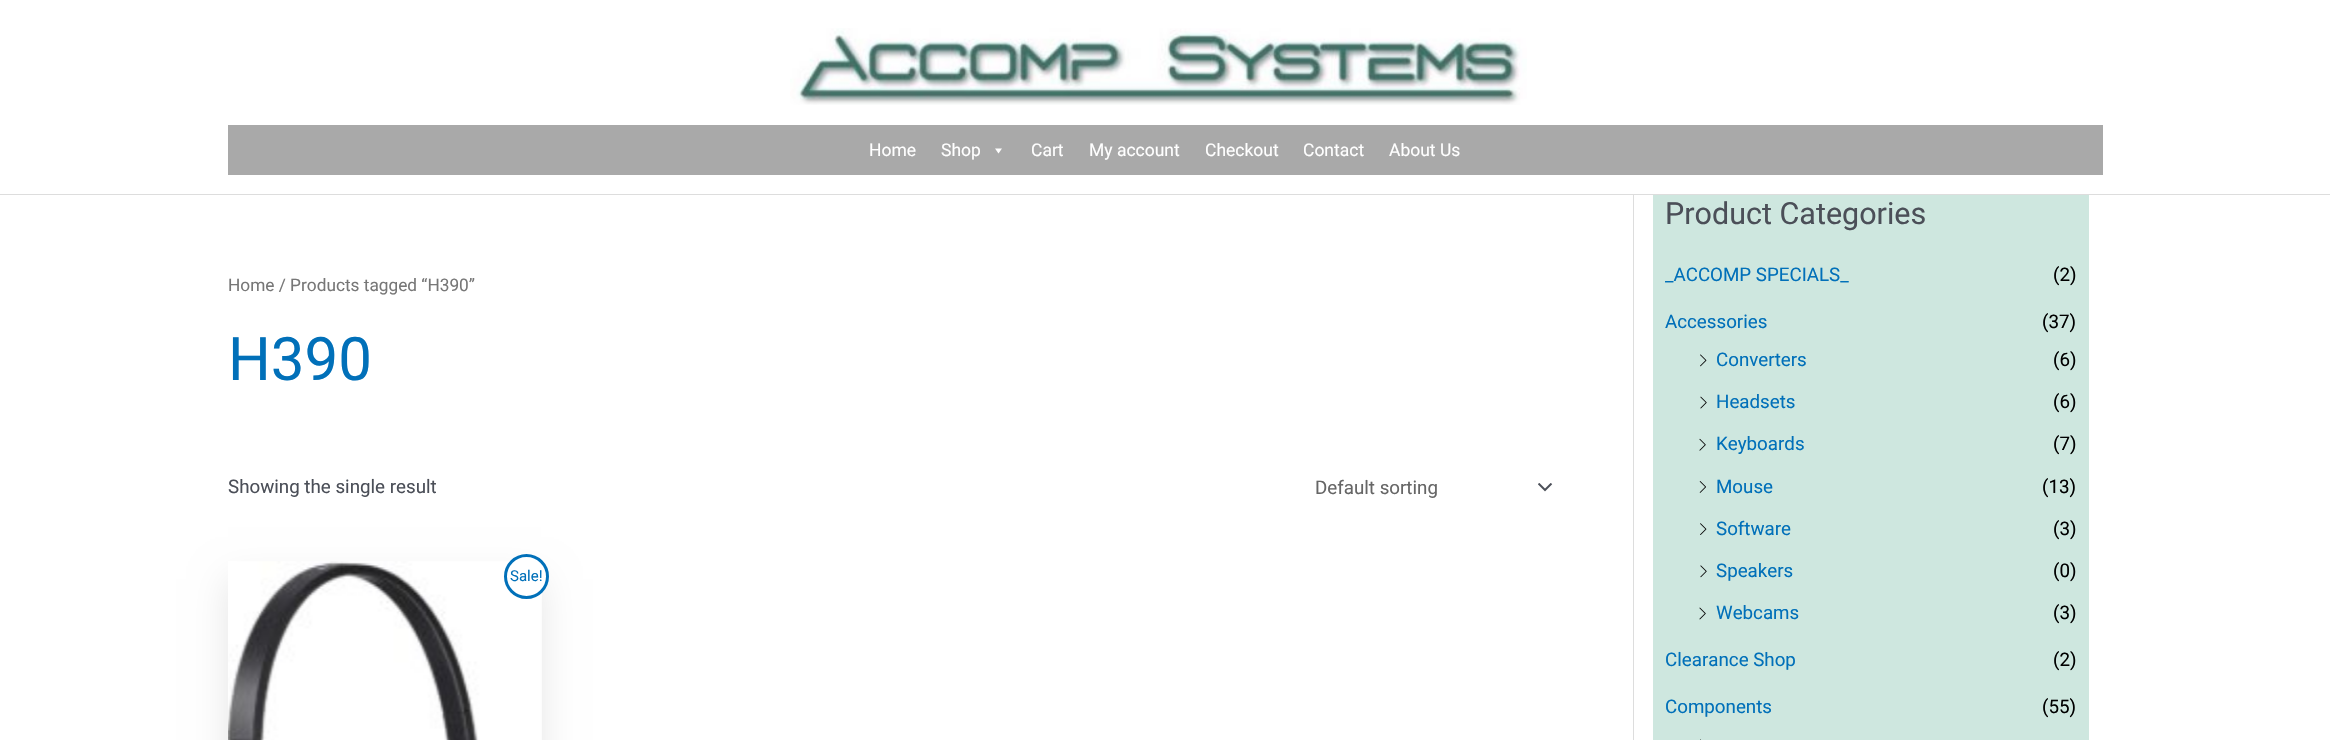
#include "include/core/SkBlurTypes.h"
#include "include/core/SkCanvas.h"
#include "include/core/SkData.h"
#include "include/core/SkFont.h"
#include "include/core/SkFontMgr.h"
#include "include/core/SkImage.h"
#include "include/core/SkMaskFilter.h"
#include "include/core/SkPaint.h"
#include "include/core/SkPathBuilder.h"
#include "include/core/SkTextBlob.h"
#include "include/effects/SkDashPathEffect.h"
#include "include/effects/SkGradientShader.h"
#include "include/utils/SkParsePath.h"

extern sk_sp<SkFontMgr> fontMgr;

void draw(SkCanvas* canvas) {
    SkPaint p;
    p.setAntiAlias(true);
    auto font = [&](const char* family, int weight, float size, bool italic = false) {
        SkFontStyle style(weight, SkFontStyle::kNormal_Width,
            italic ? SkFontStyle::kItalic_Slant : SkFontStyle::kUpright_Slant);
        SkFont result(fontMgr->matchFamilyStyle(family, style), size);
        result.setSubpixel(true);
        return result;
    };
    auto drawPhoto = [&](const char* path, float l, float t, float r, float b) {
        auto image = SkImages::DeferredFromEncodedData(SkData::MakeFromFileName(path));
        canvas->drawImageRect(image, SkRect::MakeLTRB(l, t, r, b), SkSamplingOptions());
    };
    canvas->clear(0xFFFFFFFF);
    p.setColor(0xFFDDDDDD);
    canvas->drawRect(SkRect::MakeLTRB(0, 194, 2330, 195), p);
    drawPhoto("media/1.png", 790, 28, 1527, 105);
    p.setColor(0xFFA9A9A9);
    canvas->drawRect(SkRect::MakeLTRB(228, 125, 2103, 175), p);
    auto font1 = font("Roboto", 400, 17.5f);
    p.setColor(0xFFFFFFFF);
    canvas->drawString("Home", 869, 156, font1, p);
    canvas->drawString("Shop", 941, 156, font1, p);
    canvas->drawPath(SkPathBuilder().moveTo(1002, 148.5f).lineTo(998.5f, 153.5f).lineTo(995, 148.5f).close().detach(), p);
    {
        const struct { const char* s; float x, y; } items[] = {
            {"Cart", 1031, 156},
            {"My account", 1089, 156},
            {"Checkout", 1205, 156},
            {"Contact", 1303, 156},
            {"About Us", 1389, 156},
        };
        for (auto [s, x, y] : items) {
            canvas->drawString(s, x, y, font1, p);
        }
    }
    auto font2 = font("Roboto", 400, 17.25f);
    p.setColor(0xFF777777);
    canvas->drawString("Home / Products tagged “H390”", 228, 291, font2, p);
    auto font3 = font("Roboto", 400, 60);
    p.setColor(0xFF0170B9);
    canvas->drawString("H390", 228, 380, font3, p);
    auto font4 = font("Roboto", 400, 18.75f);
    p.setColor(0xFF4B4F58);
    canvas->drawString("Showing the single result", 228, 493, font4, p);
    drawPhoto("media/2.png", 1538, 483, 1553, 492);
    p.setColor(0xFF666666);
    canvas->drawString("Default sorting", 1315, 494, font4, p);
    p.setColor(0x1A000000);
    p.setMaskFilter(SkMaskFilter::MakeBlur(kNormal_SkBlurStyle, 17.5f));
    canvas->drawRect(SkRect::MakeLTRB(228, 579, 541, 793), p);
    p.setMaskFilter(nullptr);
    drawPhoto("media/3.png", 228, 561, 542, 740);
    p.setColor(0xFFFFFFFF);
    canvas->drawCircle(526.5f, 576.5f, 21, p);
    p.setStyle(SkPaint::kStroke_Style);
    p.setStrokeWidth(3);
    p.setColor(0xFF0170B9);
    canvas->drawCircle(526.5f, 576.5f, 21, p);
    auto font5 = font("Roboto", 400, 15);
    p.setStyle(SkPaint::kFill_Style);
    canvas->drawString("Sale!", 510, 581, font5, p);
    p.setColor(0xFFDDDDDD);
    canvas->drawRect(SkRect::MakeLTRB(1633, 195, 1634, 740), p);
    p.setColor(0xFFCEE7DF);
    canvas->drawRect(SkRect::MakeLTRB(1653, 195, 2089, 740), p);
    auto font6 = font("Roboto", 400, 30.5f);
    p.setColor(0xFF4B4F58);
    canvas->drawString("Product Categories", 1665, 224, font6, p);
    p.setColor(0xFF0170B9);
    canvas->drawString("_ACCOMP SPECIALS_", 1665, 281, font4, p);
    p.setColor(0xFF000000);
    canvas->drawString("(2)", 2053, 281, font4, p);
    p.setColor(0xFF0170B9);
    canvas->drawString("Accessories", 1665, 328, font4, p);
    p.setColor(0xFF000000);
    canvas->drawString("(37)", 2042, 328, font4, p);
    drawPhoto("media/4.png", 1700, 354, 1707, 367);
    p.setColor(0xFF0170B9);
    canvas->drawString("Converters", 1716, 366, font4, p);
    p.setColor(0xFF000000);
    canvas->drawString("(6)", 2053, 366, font4, p);
    drawPhoto("media/5.png", 1700, 396, 1707, 409);
    p.setColor(0xFF0170B9);
    canvas->drawString("Headsets", 1716, 408, font4, p);
    p.setColor(0xFF000000);
    canvas->drawString("(6)", 2053, 408, font4, p);
    drawPhoto("media/6.png", 1699, 438, 1706, 451);
    p.setColor(0xFF0170B9);
    canvas->drawString("Keyboards", 1716, 450, font4, p);
    p.setColor(0xFF000000);
    canvas->drawString("(7)", 2053, 450, font4, p);
    drawPhoto("media/7.png", 1699, 481, 1706, 493);
    p.setColor(0xFF0170B9);
    canvas->drawString("Mouse", 1716, 493, font4, p);
    p.setColor(0xFF000000);
    canvas->drawString("(13)", 2042, 493, font4, p);
    drawPhoto("media/8.png", 1700, 523, 1707, 535);
    p.setColor(0xFF0170B9);
    canvas->drawString("Software", 1716, 535, font4, p);
    p.setColor(0xFF000000);
    canvas->drawString("(3)", 2053, 535, font4, p);
    drawPhoto("media/9.png", 1700, 565, 1707, 578);
    p.setColor(0xFF0170B9);
    canvas->drawString("Speakers", 1716, 577, font4, p);
    p.setColor(0xFF000000);
    canvas->drawString("(0)", 2053, 577, font4, p);
    drawPhoto("media/10.png", 1699, 607, 1706, 620);
    p.setColor(0xFF0170B9);
    canvas->drawString("Webcams", 1716, 619, font4, p);
    p.setColor(0xFF000000);
    canvas->drawString("(3)", 2053, 619, font4, p);
    p.setColor(0xFF0170B9);
    canvas->drawString("Clearance Shop", 1665, 666, font4, p);
    p.setColor(0xFF000000);
    canvas->drawString("(2)", 2053, 666, font4, p);
    p.setColor(0xFF0170B9);
    canvas->drawString("Components", 1665, 713, font4, p);
    p.setColor(0xFF000000);
    canvas->drawString("(55)", 2042, 713, font4, p);
    p.setColor(0xFF82928C);
    canvas->drawRect(SkRect::MakeLTRB(1700, 739, 1701, 740), p);
}
